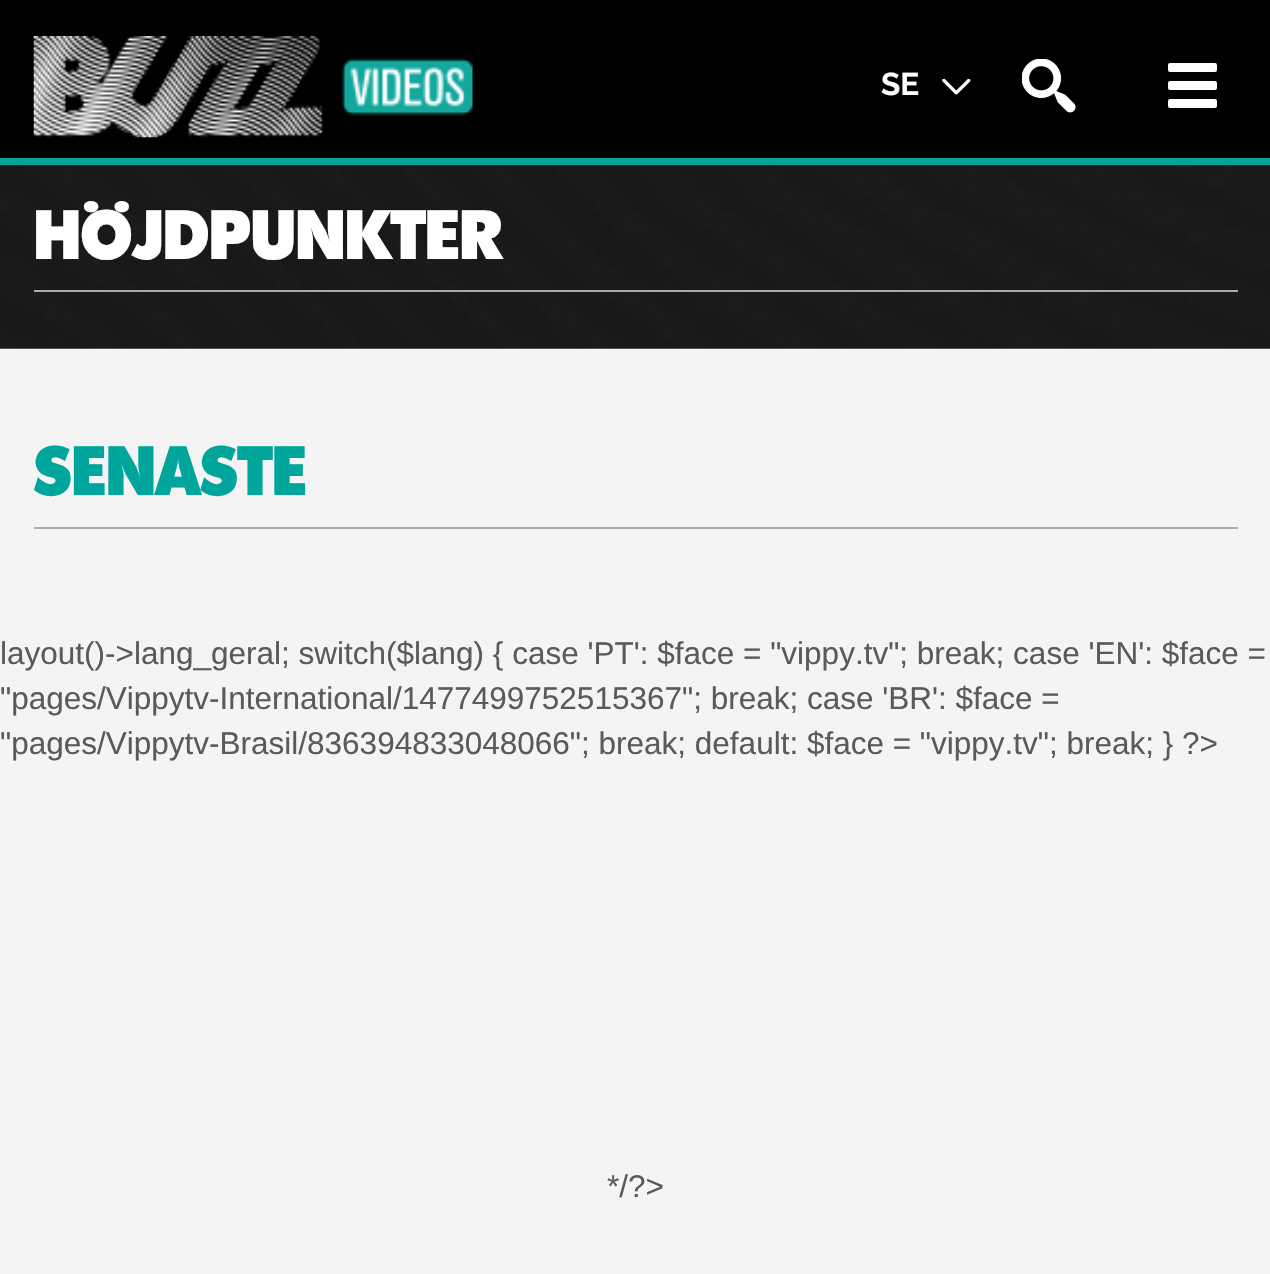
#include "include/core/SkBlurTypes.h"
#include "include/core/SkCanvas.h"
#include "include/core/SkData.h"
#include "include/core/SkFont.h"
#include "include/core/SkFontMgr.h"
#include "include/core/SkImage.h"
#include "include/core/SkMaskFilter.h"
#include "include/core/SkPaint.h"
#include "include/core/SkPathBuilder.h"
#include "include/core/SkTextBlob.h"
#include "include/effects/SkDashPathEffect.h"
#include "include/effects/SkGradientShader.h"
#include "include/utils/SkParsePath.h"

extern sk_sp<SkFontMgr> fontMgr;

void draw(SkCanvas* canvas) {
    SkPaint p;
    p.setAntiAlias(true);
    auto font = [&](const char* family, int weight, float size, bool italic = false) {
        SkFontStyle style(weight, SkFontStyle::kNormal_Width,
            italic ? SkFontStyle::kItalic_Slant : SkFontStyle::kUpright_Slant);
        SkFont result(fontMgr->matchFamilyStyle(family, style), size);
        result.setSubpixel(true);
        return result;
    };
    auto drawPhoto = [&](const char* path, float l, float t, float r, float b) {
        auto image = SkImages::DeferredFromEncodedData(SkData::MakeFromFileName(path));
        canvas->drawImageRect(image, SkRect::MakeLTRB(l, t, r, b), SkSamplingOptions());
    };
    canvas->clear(0xFFF4F4F4);
    p.setColor(0xFF000000);
    canvas->drawRect(SkRect::MakeLTRB(0, 0, 1270, 158), p);
    p.setColor(0xFF00A69C);
    canvas->drawRect(SkRect::MakeLTRB(0, 158, 1270, 165), p);
    drawPhoto("media/1.png", 33, 36, 473, 138);
    auto font1 = font("Raleway", 700, 31.5f);
    p.setColor(0xFFFFFFFF);
    canvas->drawString("SE", 881, 95, font1, p);
    drawPhoto("media/2.png", 942, 79, 971, 95);
    drawPhoto("media/3.png", 1022, 59, 1076, 113);
    canvas->drawRoundRect(SkRect::MakeLTRB(1168, 63, 1217, 72), 2, 2, p);
    canvas->drawRoundRect(SkRect::MakeLTRB(1168, 81, 1217, 90), 2, 2, p);
    canvas->drawRoundRect(SkRect::MakeLTRB(1168, 99, 1217, 108), 2, 2, p);
    drawPhoto("media/4.png", 0, 165, 1270, 349);
    p.setColor(0xFFAAAAAA);
    canvas->drawRect(SkRect::MakeLTRB(34, 290, 1238, 292), p);
    auto font2 = font("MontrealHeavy", 900, 67.5f);
    p.setColor(0xFFFFFFFF);
    canvas->drawString("HÖJDPUNKTER", 34, 259, font2, p);
    p.setColor(0xFFAAAAAA);
    canvas->drawRect(SkRect::MakeLTRB(34, 527, 1238, 529), p);
    p.setColor(0xFF00A69C);
    canvas->drawString("SENASTE", 34, 495, font2, p);
    auto font3 = font("Liberation Sans", 400, 31.5f);
    p.setColor(0xFF5A5A5A);
    {
        const struct { const char* s; float x, y; } items[] = {
            {"layout()->lang_geral; switch($lang) { case 'PT': $face = \"vippy.tv\"; break; case 'EN': $face =", 0, 664},
            {"\"pages/Vippytv-International/1477499752515367\"; break; case 'BR': $face =", 0, 709},
            {"\"pages/Vippytv-Brasil/836394833048066\"; break; default: $face = \"vippy.tv\"; break; } ?>", 0, 754},
            {"*/?>", 607, 1197},
        };
        for (auto [s, x, y] : items) {
            canvas->drawString(s, x, y, font3, p);
        }
    }
}
